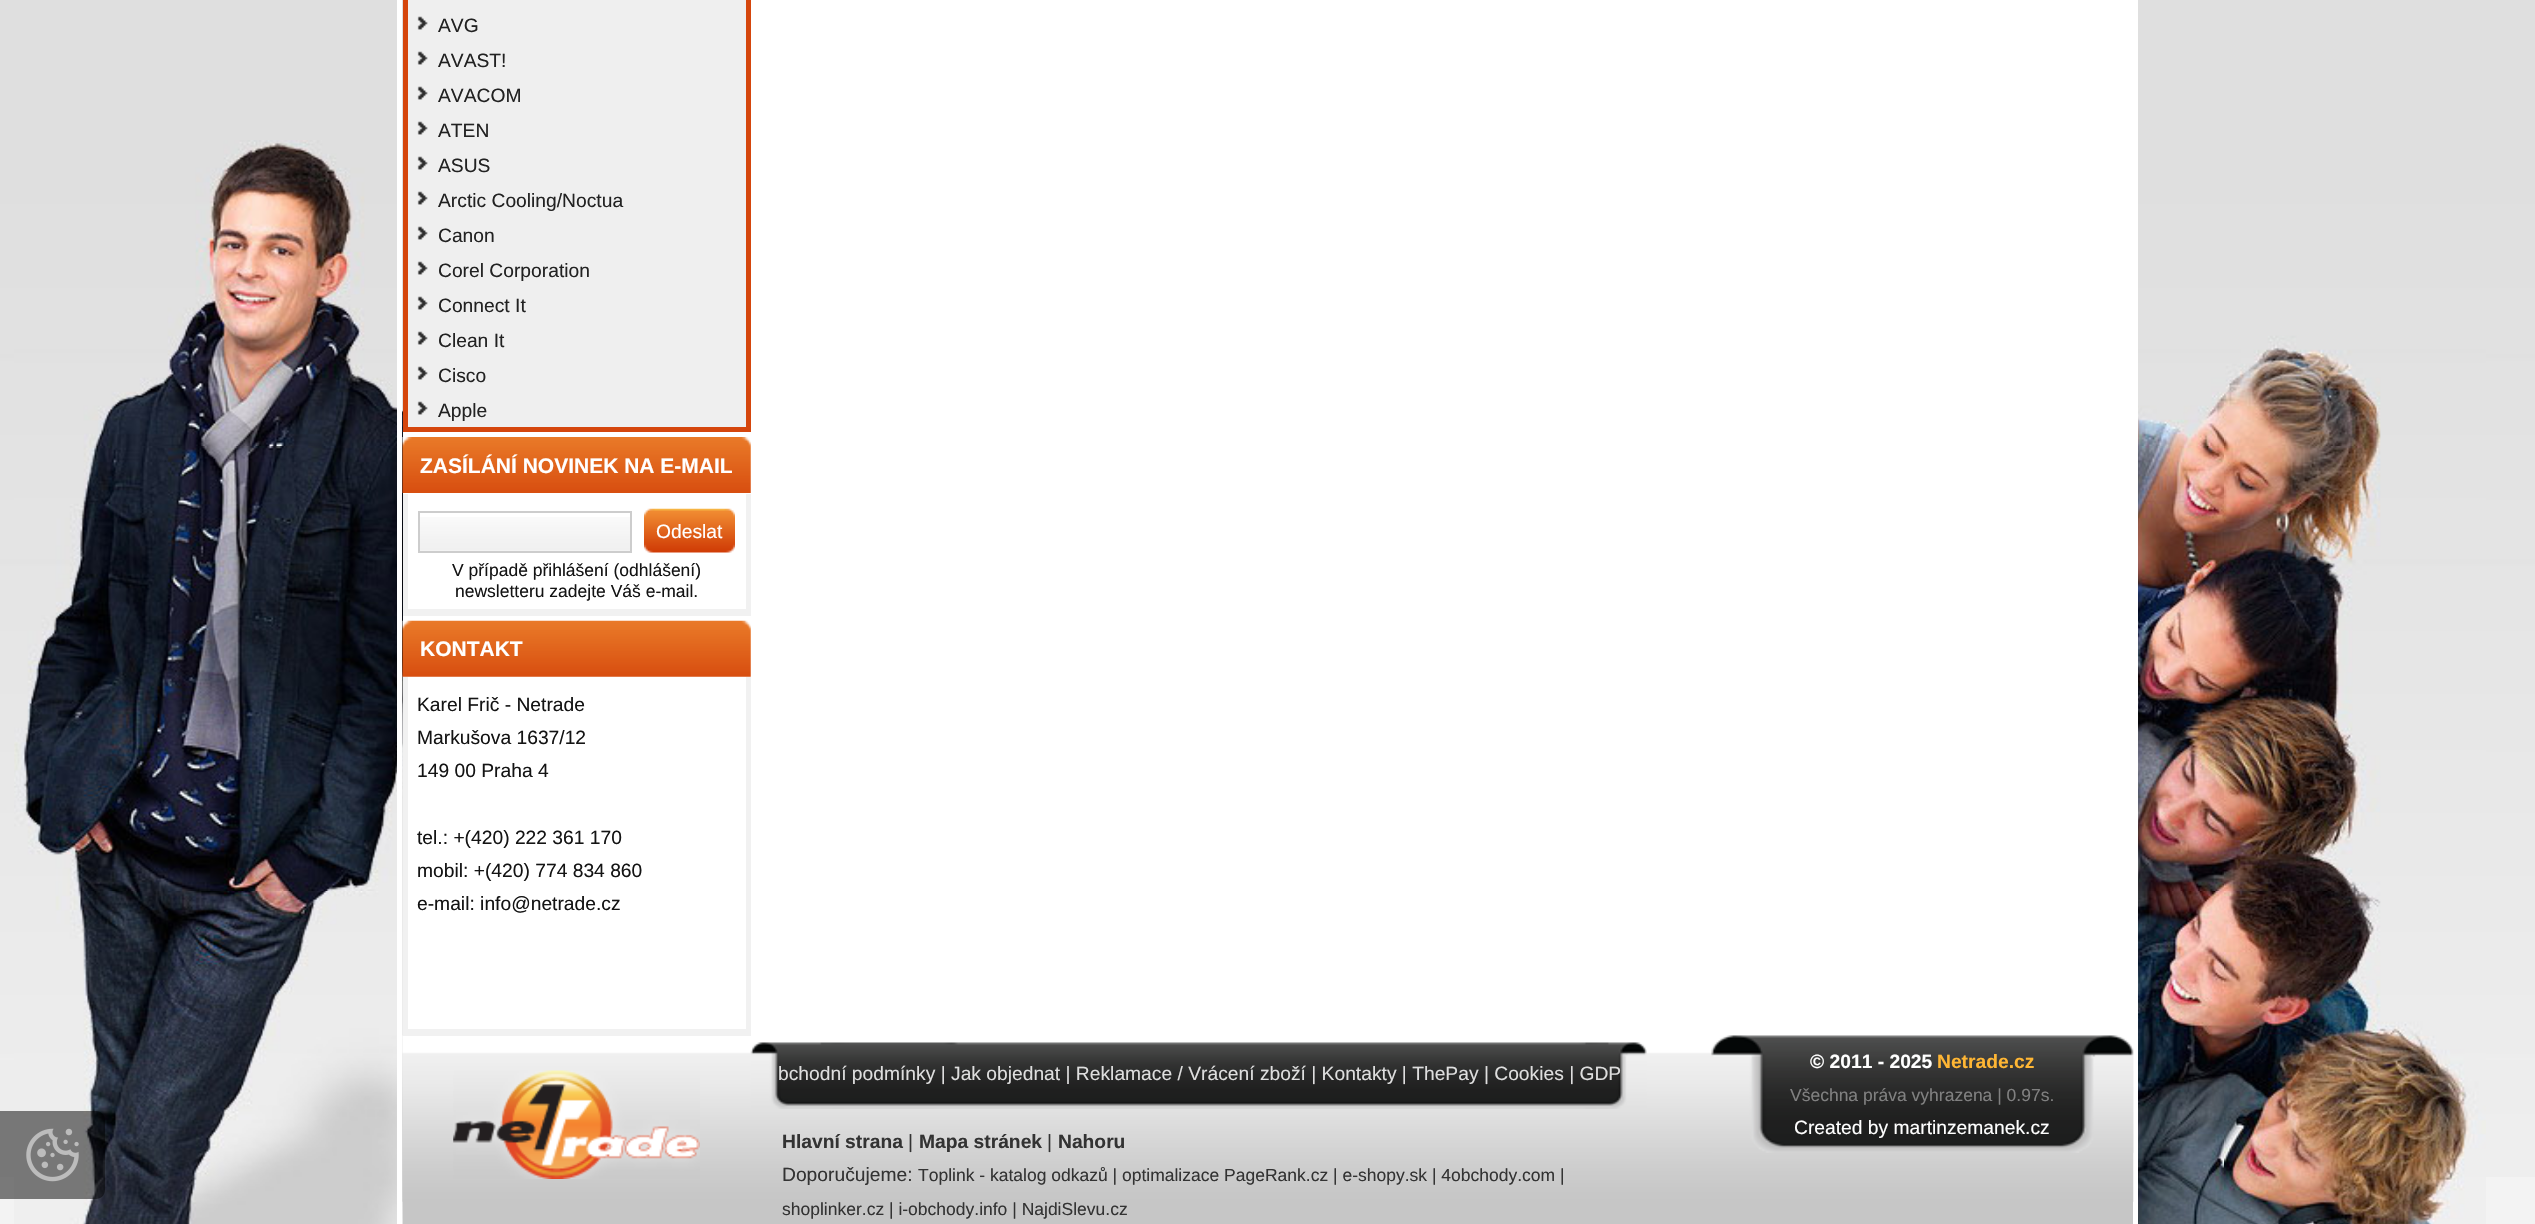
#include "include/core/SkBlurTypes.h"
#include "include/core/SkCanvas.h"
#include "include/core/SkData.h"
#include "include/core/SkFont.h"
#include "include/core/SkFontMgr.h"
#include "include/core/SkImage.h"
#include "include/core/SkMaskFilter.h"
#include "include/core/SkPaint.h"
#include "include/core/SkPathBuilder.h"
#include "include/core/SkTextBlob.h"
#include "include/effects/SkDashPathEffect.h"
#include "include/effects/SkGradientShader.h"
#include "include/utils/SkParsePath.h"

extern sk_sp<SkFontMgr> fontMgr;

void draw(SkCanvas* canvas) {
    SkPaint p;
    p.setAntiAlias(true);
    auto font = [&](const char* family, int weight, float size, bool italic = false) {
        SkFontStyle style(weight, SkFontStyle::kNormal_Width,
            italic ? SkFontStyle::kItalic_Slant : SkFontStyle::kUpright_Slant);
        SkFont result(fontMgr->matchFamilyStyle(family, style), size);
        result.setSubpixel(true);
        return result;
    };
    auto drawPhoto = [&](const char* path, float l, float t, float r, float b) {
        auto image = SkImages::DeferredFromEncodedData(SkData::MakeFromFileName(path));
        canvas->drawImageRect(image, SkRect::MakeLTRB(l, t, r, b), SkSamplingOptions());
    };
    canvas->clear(0xFFF3F3F3);
    drawPhoto("media/1.png", 0, 0, 2535, 1177);
    drawPhoto("media/3.png", 14, 140, 2486, 1224);
    p.setColor(0x80000000);
    canvas->drawPath(SkPathBuilder().moveTo(0, 1111).lineTo(96, 1111).cubicTo(101, 1111, 105, 1115, 105, 1120).lineTo(105, 1190).cubicTo(105, 1195, 101, 1199, 96, 1199).lineTo(0, 1199).close().detach(), p);
    drawPhoto("media/2.png", 26, 1128, 79, 1182);
    {
        const struct { float l, t, r, b; SkColor color; } items[] = {
            {2133, 0, 2138, 1224, 0xFFFFFFFF},
            {397, 0, 402, 1224, 0xFFFFFFFF},
            {403, 0, 2133, 1036, 0xFFFFFFFF},
            {403, 0, 751, 432, 0xFFD5460C},
            {408, 0, 746, 427, 0xFFEFEFEF},
        };
        for (auto [l, t, r, b, color] : items) {
            p.setColor(color);
            canvas->drawRect(SkRect::MakeLTRB(l, t, r, b), p);
        }
    }
    drawPhoto("media/4.png", 417, 16, 428, 30);
    auto font1 = font("Liberation Sans", 400, 19.25f);
    p.setColor(0xFF222222);
    canvas->drawString("AVG", 438, 32, font1, p);
    drawPhoto("media/4.png", 417, 51, 428, 65);
    canvas->drawString("AVAST!", 438, 67, font1, p);
    drawPhoto("media/4.png", 417, 86, 428, 100);
    canvas->drawString("AVACOM", 438, 102, font1, p);
    drawPhoto("media/4.png", 417, 121, 428, 135);
    canvas->drawString("ATEN", 438, 137, font1, p);
    drawPhoto("media/4.png", 417, 156, 428, 170);
    canvas->drawString("ASUS", 438, 172, font1, p);
    drawPhoto("media/4.png", 417, 191, 428, 205);
    canvas->drawString("Arctic Cooling/Noctua", 438, 207, font1, p);
    drawPhoto("media/4.png", 417, 226, 428, 240);
    canvas->drawString("Canon", 438, 242, font1, p);
    drawPhoto("media/4.png", 417, 261, 428, 275);
    canvas->drawString("Corel Corporation", 438, 277, font1, p);
    drawPhoto("media/4.png", 417, 296, 428, 310);
    canvas->drawString("Connect It", 438, 312, font1, p);
    drawPhoto("media/4.png", 417, 331, 428, 345);
    canvas->drawString("Clean It", 438, 347, font1, p);
    drawPhoto("media/4.png", 417, 366, 428, 380);
    canvas->drawString("Cisco", 438, 382, font1, p);
    drawPhoto("media/4.png", 417, 401, 428, 415);
    canvas->drawString("Apple", 438, 417, font1, p);
    drawPhoto("media/5.png", 402, 437, 751, 493);
    auto font2 = font("Liberation Sans", 700, 21);
    p.setColor(0xFFFFFFFF);
    canvas->drawString("ZASÍLÁNÍ NOVINEK NA E-MAIL", 420, 473, font2, p);
    p.setColor(0xFFF1F1F1);
    canvas->drawRect(SkRect::MakeLTRB(403, 494, 751, 616), p);
    p.setColor(0xFFFFFFFF);
    canvas->drawRect(SkRect::MakeLTRB(408, 494, 746, 609), p);
    drawPhoto("media/6.png", 420, 517, 630, 551);
    p.setStyle(SkPaint::kStroke_Style);
    p.setStrokeWidth(2);
    p.setColor(0xFFCDCDCD);
    canvas->drawRect(SkRect::MakeLTRB(419, 512, 631, 552), p);
    drawPhoto("media/7.png", 644, 508, 735, 553);
    p.setStyle(SkPaint::kFill_Style);
    p.setColor(0xFFFFFFFF);
    canvas->drawString("Odeslat", 656, 538, font1, p);
    auto font3 = font("Liberation Sans", 400, 17.5f);
    p.setColor(0xFF141414);
    canvas->drawString("V případě přihlášení (odhlášení)", 452, 576, font3, p);
    canvas->drawString("newsletteru zadejte Váš e-mail.", 455, 597, font3, p);
    drawPhoto("media/8.png", 402, 620, 751, 677);
    p.setColor(0xFFFFFFFF);
    canvas->drawString("KONTAKT", 420, 656, font2, p);
    p.setColor(0xFFC6C6C6);
    canvas->drawRect(SkRect::MakeLTRB(403, 1201, 2133, 1224), p);
    drawPhoto("media/9.png", 402, 1035, 2134, 1202);
    p.setColor(0xFFF1F1F1);
    canvas->drawRect(SkRect::MakeLTRB(403, 677, 751, 1036), p);
    p.setColor(0xFFFFFFFF);
    canvas->drawRect(SkRect::MakeLTRB(408, 677, 746, 1029), p);
    p.setColor(0xFF141414);
    {
        const struct { const char* s; float x, y; } items[] = {
            {"Karel Frič - Netrade", 417, 711},
            {"Markušova 1637/12", 417, 744},
            {"149 00 Praha 4", 417, 777},
            {"tel.: +(420) 222 361 170", 417, 844},
            {"mobil: +(420) 774 834 860", 417, 877},
            {"e-mail: info@netrade.cz", 417, 910},
        };
        for (auto [s, x, y] : items) {
            canvas->drawString(s, x, y, font1, p);
        }
    }
    drawPhoto("media/10.png", 453, 1070, 700, 1179);
    drawPhoto("media/11.png", 750, 1042, 1647, 1109);
    p.setColor(0xFFDEDEDE);
    canvas->drawString("bchodní podmínky | Jak objednat | Reklamace / Vrácení zboží | Kontakty | ThePay | Cookies | GDP", 778, 1080, font1, p);
    auto font4 = font("Liberation Sans", 700, 19.25f);
    p.setColor(0xFF333333);
    canvas->drawString("Hlavní strana", 782, 1148, font4, p);
    canvas->drawString("|", 908, 1148, font1, p);
    canvas->drawString("Mapa stránek", 919, 1148, font4, p);
    canvas->drawString("|", 1047, 1148, font1, p);
    canvas->drawString("Nahoru", 1058, 1148, font4, p);
    canvas->drawString("Doporučujeme:", 782, 1181, font1, p);
    canvas->drawString("Toplink - katalog odkazů | optimalizace PageRank.cz | e-shopy.sk | 4obchody.com |", 918, 1181, font3, p);
    canvas->drawString("shoplinker.cz | i-obchody.info | NajdiSlevu.cz", 782, 1215, font3, p);
    drawPhoto("media/12.png", 1711, 1035, 2134, 1153);
    p.setColor(0xFFFFFFFF);
    canvas->drawString("© 2011 - 2025", 1810, 1068, font4, p);
    p.setColor(0xFFFFB634);
    canvas->drawString("Netrade.cz", 1937, 1068, font4, p);
    p.setColor(0xFF808080);
    canvas->drawString("Všechna práva vyhrazena | 0.97s.", 1790, 1101, font3, p);
    p.setColor(0xFFFFFFFF);
    canvas->drawString("Created by martinzemanek.cz", 1794, 1134, font1, p);
}
